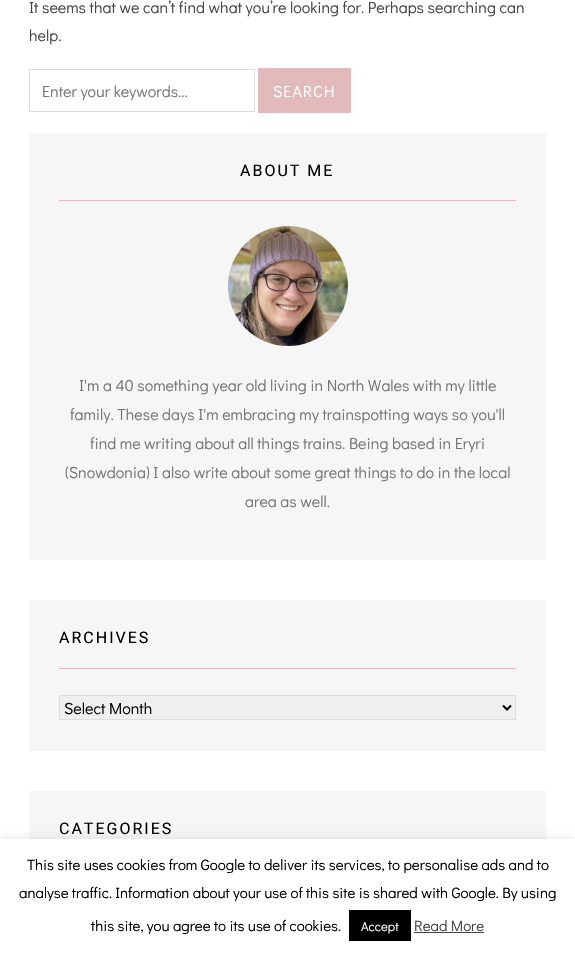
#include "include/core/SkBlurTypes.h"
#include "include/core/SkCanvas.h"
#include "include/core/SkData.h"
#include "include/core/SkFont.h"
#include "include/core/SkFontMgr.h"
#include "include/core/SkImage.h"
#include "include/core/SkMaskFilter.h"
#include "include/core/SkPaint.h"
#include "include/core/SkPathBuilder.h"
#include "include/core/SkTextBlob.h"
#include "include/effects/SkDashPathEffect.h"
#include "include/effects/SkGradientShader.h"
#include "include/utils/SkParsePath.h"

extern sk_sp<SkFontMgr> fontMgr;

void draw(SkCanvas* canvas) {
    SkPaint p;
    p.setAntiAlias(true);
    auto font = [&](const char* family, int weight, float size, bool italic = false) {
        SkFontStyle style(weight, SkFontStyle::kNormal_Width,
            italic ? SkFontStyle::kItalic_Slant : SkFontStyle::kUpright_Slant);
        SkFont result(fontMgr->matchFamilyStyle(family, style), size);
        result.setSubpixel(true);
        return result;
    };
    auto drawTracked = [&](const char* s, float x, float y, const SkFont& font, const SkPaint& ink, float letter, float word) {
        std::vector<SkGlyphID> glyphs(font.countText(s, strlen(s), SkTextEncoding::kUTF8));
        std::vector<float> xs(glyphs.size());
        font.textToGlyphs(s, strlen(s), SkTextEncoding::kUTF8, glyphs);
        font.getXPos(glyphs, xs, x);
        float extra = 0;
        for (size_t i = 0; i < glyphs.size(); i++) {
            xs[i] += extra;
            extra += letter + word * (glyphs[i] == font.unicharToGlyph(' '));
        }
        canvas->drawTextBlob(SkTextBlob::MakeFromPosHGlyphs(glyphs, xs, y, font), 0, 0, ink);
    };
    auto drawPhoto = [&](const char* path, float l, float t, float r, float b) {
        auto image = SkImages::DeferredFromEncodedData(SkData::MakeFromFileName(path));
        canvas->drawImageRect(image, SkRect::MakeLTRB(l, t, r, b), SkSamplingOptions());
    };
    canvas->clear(0xFFFFFFFF);
    auto font1 = font("Didact Gothic", 400, 16);
    p.setColor(0xFF444444);
    canvas->drawString("It seems that we can’t find what you’re looking for. Perhaps searching can", 29, 13, font1, p);
    canvas->drawString("help.", 29, 41, font1, p);
    p.setStyle(SkPaint::kStroke_Style);
    p.setStrokeWidth(1);
    p.setColor(0xFFDDDDDD);
    canvas->drawRect(SkRect::MakeLTRB(29.5f, 69.5f, 254.5f, 111.5f), p);
    p.setStyle(SkPaint::kFill_Style);
    p.setColor(0xFF757575);
    canvas->drawString("Enter your keywords...", 42, 97, font1, p);
    p.setColor(0xFFE2BABB);
    canvas->drawRect(SkRect::MakeLTRB(258, 68, 351, 113), p);
    p.setColor(0xFFFFFFFF);
    drawTracked("SEARCH", 273, 97, font1, p, 1, 0);
    p.setColor(0xFFF6F6F6);
    canvas->drawRect(SkRect::MakeLTRB(29, 133, 546, 560), p);
    p.setColor(0xFFE2BABB);
    canvas->drawRect(SkRect::MakeLTRB(59, 200, 516, 201), p);
    auto font2 = font("Heebo", 400, 16);
    p.setColor(0xFF000000);
    drawTracked("ABOUT ME", 240, 176, font2, p, 2, 0);
    drawPhoto("media/1.png", 228, 226, 348, 346);
    p.setColor(0xFF757575);
    {
        const struct { const char* s; float x, y; } items[] = {
            {"I'm a 40 something year old living in North Wales with my little", 79, 391},
            {"family. These days I'm embracing my trainspotting ways so you'll", 70, 420},
            {"find me writing about all things trains. Being based in Eryri", 90, 449},
            {"(Snowdonia) I also write about some great things to do in the local", 65, 478},
            {"area as well.", 245, 507},
        };
        for (auto [s, x, y] : items) {
            canvas->drawString(s, x, y, font1, p);
        }
    }
    p.setColor(0xFFF6F6F6);
    canvas->drawRect(SkRect::MakeLTRB(29, 600, 546, 751), p);
    p.setColor(0xFFE2BABB);
    canvas->drawRect(SkRect::MakeLTRB(59, 668, 516, 669), p);
    p.setColor(0xFF000000);
    drawTracked("ARCHIVES", 59, 643, font2, p, 2, 0);
    p.setColor(0xFFEFEFEF);
    canvas->drawRect(SkRect::MakeLTRB(59.5f, 695.5f, 515.5f, 719.5f), p);
    p.setStyle(SkPaint::kStroke_Style);
    p.setColor(0xFFDDDDDD);
    canvas->drawRect(SkRect::MakeLTRB(59.5f, 695.5f, 515.5f, 719.5f), p);
    p.setStrokeWidth(2);
    p.setColor(0xFF000000);
    canvas->drawPath(SkPathBuilder().moveTo(503, 705.5f).lineTo(507, 709.5f).lineTo(511, 705.5f).detach(), p);
    p.setStyle(SkPaint::kFill_Style);
    canvas->drawString("Select Month", 64, 714, font1, p);
    p.setColor(0xFFF6F6F6);
    canvas->drawRect(SkRect::MakeLTRB(29, 791, 546, 839), p);
    p.setColor(0xFF000000);
    drawTracked("CATEGORIES", 59, 834, font2, p, 2, 0);
    p.setColor(0x4DACABAB);
    p.setMaskFilter(SkMaskFilter::MakeBlur(kNormal_SkBlurStyle, 5));
    canvas->drawRect(SkRect::MakeLTRB(0, 838, 575, 952), p);
    p.setMaskFilter(nullptr);
    p.setColor(0xFFFFFFFF);
    canvas->drawRect(SkRect::MakeLTRB(0, 839, 575, 953), p);
    auto font3 = font("Didact Gothic", 400, 15);
    p.setColor(0xFF000000);
    {
        const struct { const char* s; float x, y; } items[] = {
            {"This site uses cookies from Google to deliver its services, to personalise ads and to", 27, 870},
            {"analyse traffic. Information about your use of this site is shared with Google. By using", 19, 898},
            {"this site, you agree to its use of cookies.", 91, 931},
        };
        for (auto [s, x, y] : items) {
            canvas->drawString(s, x, y, font3, p);
        }
    }
    canvas->drawRect(SkRect::MakeLTRB(349, 910, 411, 941), p);
    auto font4 = font("Didact Gothic", 400, 13);
    p.setColor(0xFFFFFFFF);
    canvas->drawString("Accept", 361, 931, font4, p);
    p.setColor(0xFF444444);
    canvas->drawString("Read More", 414, 931, font3, p);
    canvas->drawRect(SkRect::MakeLTRB(414, 932, 484, 933), p);
}
